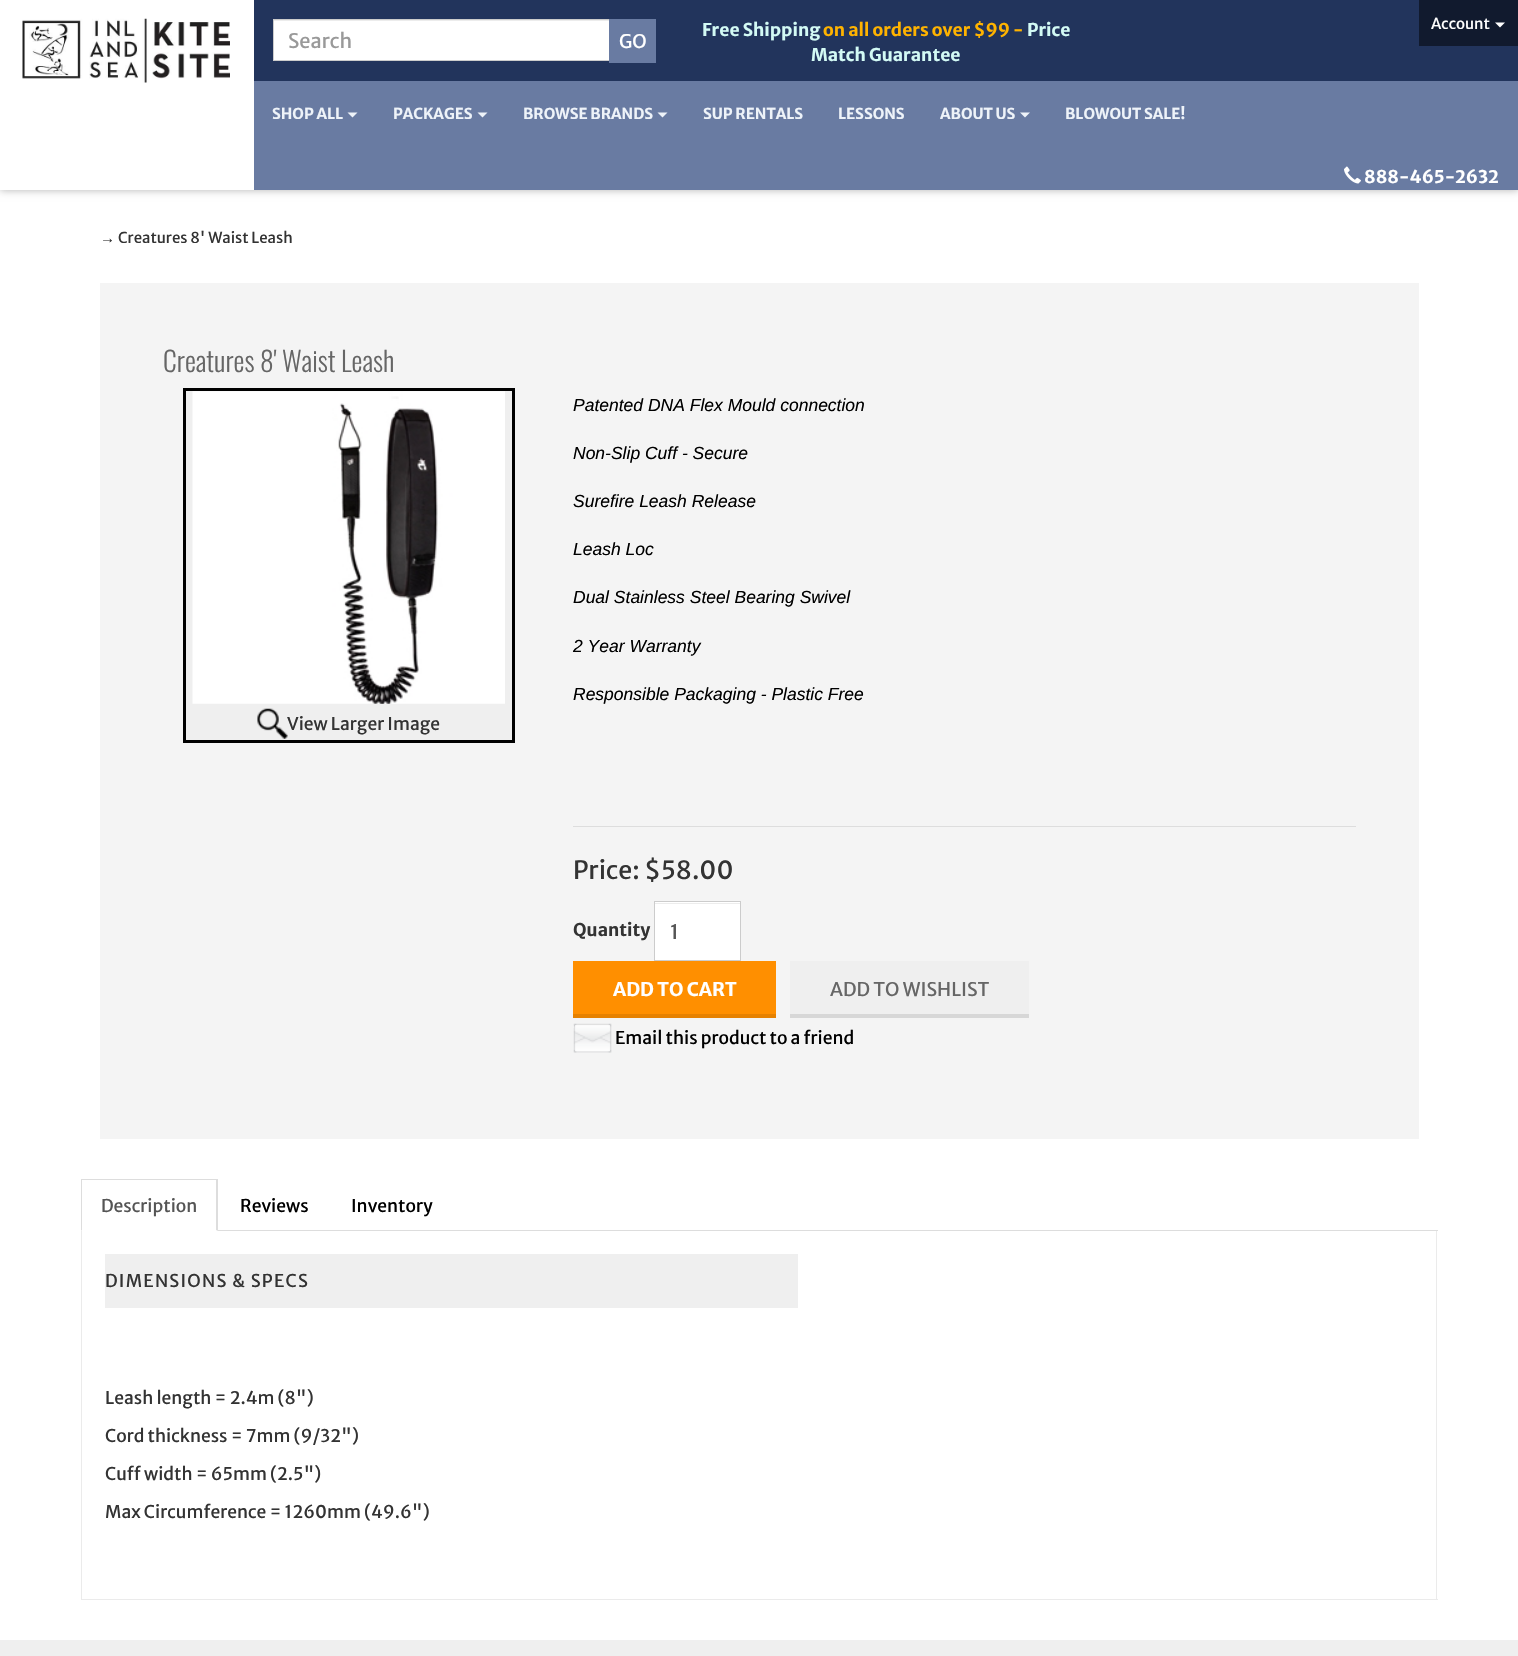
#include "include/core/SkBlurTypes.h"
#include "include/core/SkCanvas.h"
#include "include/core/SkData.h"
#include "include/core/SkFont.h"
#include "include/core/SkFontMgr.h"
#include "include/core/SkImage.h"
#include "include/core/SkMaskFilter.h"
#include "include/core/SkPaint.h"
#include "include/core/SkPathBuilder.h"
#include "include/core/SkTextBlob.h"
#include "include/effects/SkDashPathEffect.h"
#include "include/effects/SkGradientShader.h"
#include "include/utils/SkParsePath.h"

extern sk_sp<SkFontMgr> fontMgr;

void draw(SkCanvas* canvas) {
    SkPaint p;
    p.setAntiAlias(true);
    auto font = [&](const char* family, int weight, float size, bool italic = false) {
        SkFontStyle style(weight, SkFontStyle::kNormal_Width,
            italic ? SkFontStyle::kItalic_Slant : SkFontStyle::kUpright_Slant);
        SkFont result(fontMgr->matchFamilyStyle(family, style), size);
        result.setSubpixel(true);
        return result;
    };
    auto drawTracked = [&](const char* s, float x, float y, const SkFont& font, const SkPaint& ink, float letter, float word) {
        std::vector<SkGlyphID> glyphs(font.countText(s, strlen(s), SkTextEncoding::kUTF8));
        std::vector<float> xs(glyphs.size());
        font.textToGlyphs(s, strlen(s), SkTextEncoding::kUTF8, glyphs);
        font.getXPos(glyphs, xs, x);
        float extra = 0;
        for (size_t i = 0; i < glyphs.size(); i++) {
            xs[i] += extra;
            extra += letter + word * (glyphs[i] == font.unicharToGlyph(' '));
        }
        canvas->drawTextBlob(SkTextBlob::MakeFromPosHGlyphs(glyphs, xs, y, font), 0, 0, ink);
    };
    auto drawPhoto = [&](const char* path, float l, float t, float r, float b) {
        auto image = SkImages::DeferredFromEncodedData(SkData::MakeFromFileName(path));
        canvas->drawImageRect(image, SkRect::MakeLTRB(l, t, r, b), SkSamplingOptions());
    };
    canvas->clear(0xFFEFEFEF);
    p.setColor(0xFFFFFFFF);
    canvas->drawRect(SkRect::MakeLTRB(0, 190, 1518, 1640), p);
    p.setColor(0x4D000000);
    p.setMaskFilter(SkMaskFilter::MakeBlur(kNormal_SkBlurStyle, 4));
    canvas->drawRect(SkRect::MakeLTRB(0, 0, 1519, 190), p);
    p.setMaskFilter(nullptr);
    p.setColor(0xFFFFFFFF);
    canvas->drawRect(SkRect::MakeLTRB(0, 0, 254, 190), p);
    drawPhoto("media/1.png", 22, 18, 230, 83);
    {
        const struct { float l, t, r, b; SkColor color; } items[] = {
            {254, 0, 1518, 81, 0xFF22345C},
            {274, 21, 609, 60, 0xFFFFFFFF},
            {274, 20, 609, 21, 0xFFECECEC},
        };
        for (auto [l, t, r, b, color] : items) {
            p.setColor(color);
            canvas->drawRect(SkRect::MakeLTRB(l, t, r, b), p);
        }
    }
    p.setStyle(SkPaint::kStroke_Style);
    p.setStrokeWidth(1);
    p.setColor(0xFFCCCCCC);
    canvas->drawRect(SkRect::MakeLTRB(273.5f, 19.5f, 609.5f, 60.5f), p);
    auto font1 = font("Merriweather Sans", 400, 20);
    p.setStyle(SkPaint::kFill_Style);
    p.setColor(0xFF999999);
    canvas->drawString("Search", 288, 48, font1, p);
    p.setColor(0xFF697BA2);
    canvas->drawRect(SkRect::MakeLTRB(609, 19, 656, 63), p);
    auto font2 = font("Merriweather Sans", 400, 18.75f);
    p.setColor(0xFFFFFFFF);
    canvas->drawString("GO", 619, 48, font2, p);
    auto font3 = font("Merriweather Sans", 700, 17.5f);
    p.setColor(0xFFD3FAF5);
    canvas->drawString("Free Shipping", 702, 36, font3, p);
    p.setColor(0xFFFFB300);
    canvas->drawString("on all orders over $99 -", 823, 36, font3, p);
    p.setColor(0xFFD3FAF5);
    canvas->drawString("Price", 1027, 36, font3, p);
    canvas->drawString("Match Guarantee", 811, 61, font3, p);
    p.setColor(0xFF111A2E);
    canvas->drawRect(SkRect::MakeLTRB(1419, 0, 1518, 46), p);
    auto font4 = font("Merriweather Sans", 400, 15);
    p.setColor(0xFFFFFFFF);
    canvas->drawString("Account", 1431, 29, font4, p);
    canvas->drawPath(SkPathBuilder().moveTo(1495, 22.5f).lineTo(1505, 22.5f).lineTo(1500, 27.5f).close().detach(), p);
    p.setColor(0xFF697BA2);
    canvas->drawRect(SkRect::MakeLTRB(254, 81, 1518, 190), p);
    auto font5 = font("Merriweather Sans", 700, 15);
    p.setColor(0xFFEEF3F9);
    canvas->drawString("SHOP ALL", 272, 119, font5, p);
    canvas->drawPath(SkPathBuilder().moveTo(347.5f, 112.5f).lineTo(357.5f, 112.5f).lineTo(352.5f, 117.5f).close().detach(), p);
    canvas->drawString("PACKAGES", 393, 119, font5, p);
    canvas->drawPath(SkPathBuilder().moveTo(477.5f, 112.5f).lineTo(487.5f, 112.5f).lineTo(482.5f, 117.5f).close().detach(), p);
    canvas->drawString("BROWSE BRANDS", 523, 119, font5, p);
    canvas->drawPath(SkPathBuilder().moveTo(657.5f, 112.5f).lineTo(667.5f, 112.5f).lineTo(662.5f, 117.5f).close().detach(), p);
    {
        const struct { const char* s; float x, y; } items[] = {
            {"SUP RENTALS", 703, 119},
            {"LESSONS", 838, 119},
            {"ABOUT US", 940, 119},
        };
        for (auto [s, x, y] : items) {
            canvas->drawString(s, x, y, font5, p);
        }
    }
    canvas->drawPath(SkPathBuilder().moveTo(1020, 112.5f).lineTo(1030, 112.5f).lineTo(1025, 117.5f).close().detach(), p);
    canvas->drawString("BLOWOUT SALE!", 1065, 119, font5, p);
    drawPhoto("media/2.png", 1344, 166, 1361, 184);
    p.setColor(0xFFFFFFFF);
    canvas->drawString("888-465-2632", 1364, 183, font3, p);
    auto font6 = font("Liberation Serif", 400, 15);
    p.setColor(0xFF333333);
    canvas->drawString("→", 100, 243, font6, p);
    canvas->drawString("Creatures 8' Waist Leash", 118, 243, font4, p);
    p.setColor(0xFFF4F4F4);
    canvas->drawRect(SkRect::MakeLTRB(100, 283, 1419, 1139), p);
    auto font7 = font("Oswald", 300, 27.5f);
    p.setColor(0xFF666666);
    canvas->drawString("Creatures 8' Waist Leash", 163, 372, font7, p);
    p.setColor(0xFFEFEFEF);
    canvas->drawRect(SkRect::MakeLTRB(184.5f, 389.5f, 513.5f, 741.5f), p);
    p.setStyle(SkPaint::kStroke_Style);
    p.setStrokeWidth(3);
    p.setColor(0xFF000000);
    canvas->drawRect(SkRect::MakeLTRB(184.5f, 389.5f, 513.5f, 741.5f), p);
    drawPhoto("media/3.png", 192, 391, 505, 704);
    drawPhoto("media/4.png", 257, 708, 288, 739);
    auto font8 = font("Merriweather Sans", 400, 17.5f);
    p.setStyle(SkPaint::kFill_Style);
    p.setColor(0xFF333333);
    canvas->drawString("View Larger Image", 287, 730, font8, p);
    auto font9 = font("Liberation Sans", 400, 17.5f, true);
    p.setColor(0xFF000000);
    {
        const struct { const char* s; float x, y; } items[] = {
            {"Patented DNA Flex Mould connection", 573, 411},
            {"Non-Slip Cuff - Secure", 573, 459},
            {"Surefire Leash Release", 573, 507},
            {"Leash Loc", 573, 555},
            {"Dual Stainless Steel Bearing Swivel", 573, 603},
            {"2 Year Warranty", 573, 652},
            {"Responsible Packaging - Plastic Free", 573, 700},
        };
        for (auto [s, x, y] : items) {
            canvas->drawString(s, x, y, font9, p);
        }
    }
    p.setColor(0xFFDDDDDD);
    canvas->drawRect(SkRect::MakeLTRB(573, 826, 1356, 827), p);
    auto font10 = font("Merriweather Sans", 400, 25);
    p.setColor(0xFF333333);
    canvas->drawString("Price: $58.00", 573, 879, font10, p);
    canvas->drawString("Quantity", 573, 936, font3, p);
    p.setColor(0xFFFFFFFF);
    canvas->drawRect(SkRect::MakeLTRB(655, 902, 740, 960), p);
    p.setColor(0xFFECECEC);
    canvas->drawRect(SkRect::MakeLTRB(655, 903, 740, 904), p);
    p.setStyle(SkPaint::kStroke_Style);
    p.setStrokeWidth(1);
    p.setColor(0xFFCCCCCC);
    canvas->drawRect(SkRect::MakeLTRB(654.5f, 901.5f, 740.5f, 960.5f), p);
    p.setStyle(SkPaint::kFill_Style);
    p.setColor(0xFF555555);
    canvas->drawString("1", 670, 939, font1, p);
    p.setColor(0xFFFF8F00);
    canvas->drawRect(SkRect::MakeLTRB(573, 961, 776, 1014), p);
    p.setColor(0xFFE68100);
    canvas->drawRect(SkRect::MakeLTRB(573, 1014, 776, 1018), p);
    auto font11 = font("Merriweather Sans", 700, 18.75f);
    p.setColor(0xFFFFFFFF);
    canvas->drawString("ADD TO CART", 613, 996, font11, p);
    p.setColor(0xFFEFEFEF);
    canvas->drawRect(SkRect::MakeLTRB(790, 961, 1029, 1014), p);
    p.setColor(0xFFD7D7D7);
    canvas->drawRect(SkRect::MakeLTRB(790, 1014, 1029, 1018), p);
    p.setColor(0xFF666666);
    canvas->drawString("ADD TO WISHLIST", 830, 996, font2, p);
    drawPhoto("media/5.png", 573, 1023, 612, 1053);
    p.setColor(0xFF000000);
    canvas->drawString("Email this product to a friend", 615, 1044, font8, p);
    p.setColor(0xFFDDDDDD);
    canvas->drawRect(SkRect::MakeLTRB(218, 1230, 1438, 1231), p);
    canvas->drawRect(SkRect::MakeLTRB(81, 1179, 218, 1180), p);
    canvas->drawPath(SkPathBuilder().moveTo(218, 1179).lineTo(218, 1231).lineTo(216, 1230).lineTo(216, 1180).close().detach(), p);
    canvas->drawPath(SkPathBuilder().moveTo(81, 1231).lineTo(81, 1179).lineTo(82, 1180).lineTo(82, 1230).close().detach(), p);
    p.setColor(0xFF555555);
    canvas->drawString("Description", 101, 1212, font8, p);
    p.setColor(0xFF000000);
    canvas->drawString("Reviews", 240, 1212, font8, p);
    canvas->drawString("Inventory", 351, 1212, font8, p);
    {
        const struct { float l, t, r, b; SkColor color; } items[] = {
            {1436, 1231, 1437, 1600, 0xFFEBEBEB},
            {81, 1599, 1438, 1600, 0xFFEBEBEB},
            {81, 1231, 82, 1600, 0xFFEBEBEB},
            {105, 1254, 798, 1308, 0xFFEFEFEF},
        };
        for (auto [l, t, r, b, color] : items) {
            p.setColor(color);
            canvas->drawRect(SkRect::MakeLTRB(l, t, r, b), p);
        }
    }
    p.setColor(0xFF333333);
    drawTracked("DIMENSIONS & SPECS", 105, 1287, font8, p, 1.25f, 0);
    {
        const struct { const char* s; float x, y; } items[] = {
            {"Leash length = 2.4m (8\")", 105, 1404},
            {"Cord thickness = 7mm (9/32\")", 105, 1442},
            {"Cuff width = 65mm (2.5\")", 105, 1480},
            {"Max Circumference = 1260mm (49.6\")", 105, 1518},
        };
        for (auto [s, x, y] : items) {
            canvas->drawString(s, x, y, font8, p);
        }
    }
}
